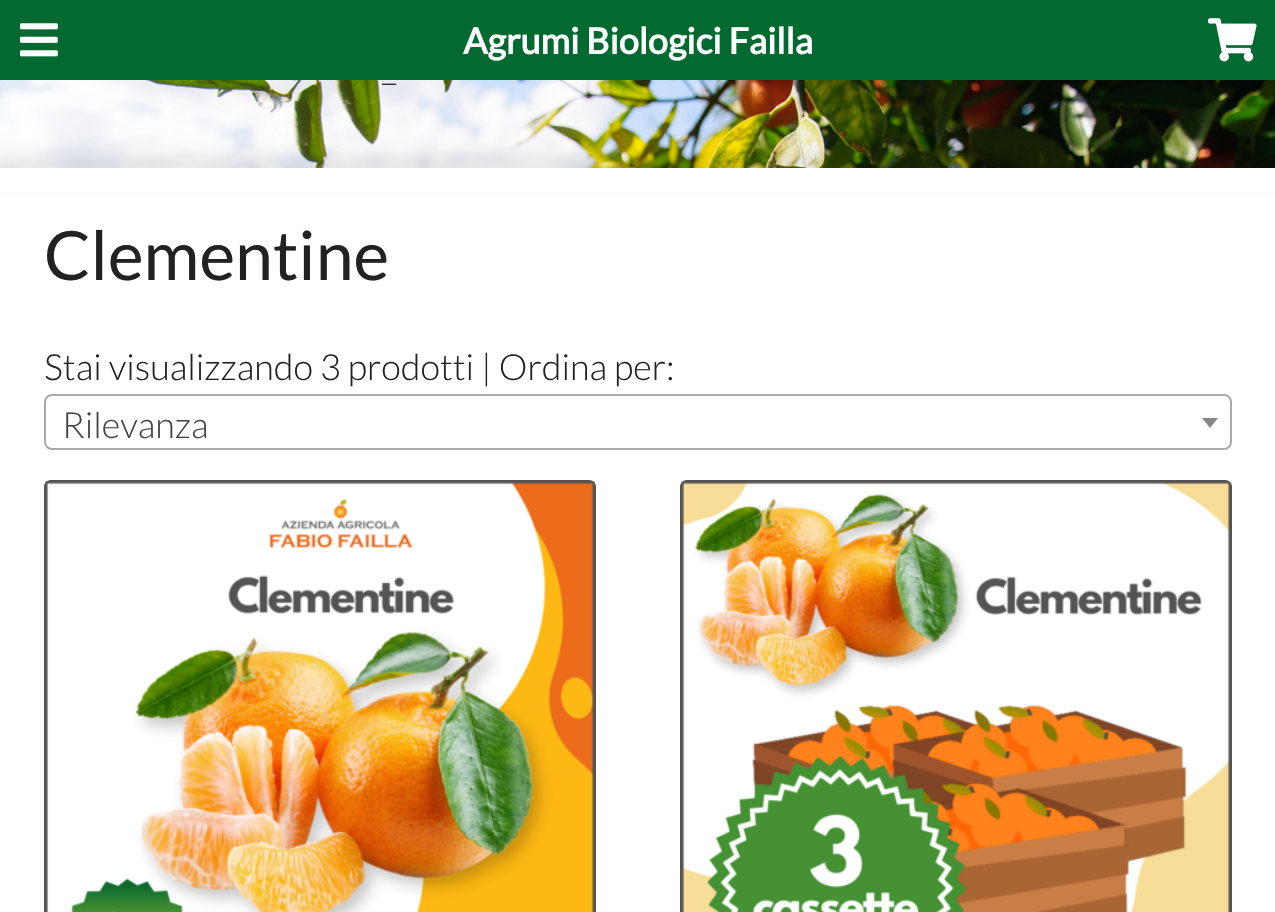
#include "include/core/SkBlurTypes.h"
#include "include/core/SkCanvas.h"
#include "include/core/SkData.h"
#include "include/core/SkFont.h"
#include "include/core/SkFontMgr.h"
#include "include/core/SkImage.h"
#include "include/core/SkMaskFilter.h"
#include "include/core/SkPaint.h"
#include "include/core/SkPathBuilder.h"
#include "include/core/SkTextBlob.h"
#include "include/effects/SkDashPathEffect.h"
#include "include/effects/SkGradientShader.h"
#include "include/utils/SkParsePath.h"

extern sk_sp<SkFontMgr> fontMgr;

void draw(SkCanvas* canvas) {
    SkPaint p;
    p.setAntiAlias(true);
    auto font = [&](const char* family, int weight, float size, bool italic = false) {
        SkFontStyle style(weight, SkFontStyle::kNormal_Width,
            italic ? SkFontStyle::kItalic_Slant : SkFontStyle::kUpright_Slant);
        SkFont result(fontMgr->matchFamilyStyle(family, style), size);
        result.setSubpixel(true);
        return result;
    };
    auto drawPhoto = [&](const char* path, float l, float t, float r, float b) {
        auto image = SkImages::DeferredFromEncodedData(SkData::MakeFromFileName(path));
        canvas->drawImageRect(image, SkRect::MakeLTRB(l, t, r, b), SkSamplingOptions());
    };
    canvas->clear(0xFFFFFFFF);
    drawPhoto("media/1.png", 0, 80, 1275, 168);
    p.setColor(0xFF026931);
    canvas->drawRect(SkRect::MakeLTRB(0, 0, 1275, 80), p);
    drawPhoto("media/2.png", 20, 23, 58, 57);
    drawPhoto("media/3.png", 1208, 18, 1257, 62);
    auto font1 = font("Lato", 700, 36);
    p.setColor(0xFFFFFFFF);
    canvas->drawString("Agrumi Biologici Failla", 463, 54, font1, p);
    p.setColor(0x1A000000);
    p.setMaskFilter(SkMaskFilter::MakeBlur(kNormal_SkBlurStyle, 10));
    canvas->drawRect(SkRect::MakeLTRB(-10, 158, 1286, 178), p);
    p.setMaskFilter(nullptr);
    auto font2 = font("Lato", 300, 36);
    p.setColor(0xFF222222);
    canvas->drawString("_", 382, 80, font2, p);
    p.setColor(0xFFFFFFFF);
    canvas->drawRect(SkRect::MakeLTRB(0, 168, 1275, 191), p);
    auto font3 = font("Lato", 400, 68);
    p.setColor(0xFF222222);
    canvas->drawString("Clementine", 44, 280, font3, p);
    canvas->drawString("Stai visualizzando 3 prodotti | Ordina per:", 44, 380, font2, p);
    p.setStyle(SkPaint::kStroke_Style);
    p.setStrokeWidth(2);
    p.setColor(0xFFAAAAAA);
    canvas->drawRoundRect(SkRect::MakeLTRB(45, 395, 1231, 449), 7, 7, p);
    p.setStyle(SkPaint::kFill_Style);
    p.setColor(0xFF444444);
    canvas->drawString("Rilevanza", 62, 438, font2, p);
    p.setColor(0xFF888888);
    canvas->drawPath(SkPathBuilder().moveTo(1202, 418).lineTo(1218, 418).lineTo(1210, 428).close().detach(), p);
    drawPhoto("media/4.png", 44, 480, 596, 912);
    drawPhoto("media/5.png", 680, 480, 1232, 912);
}
